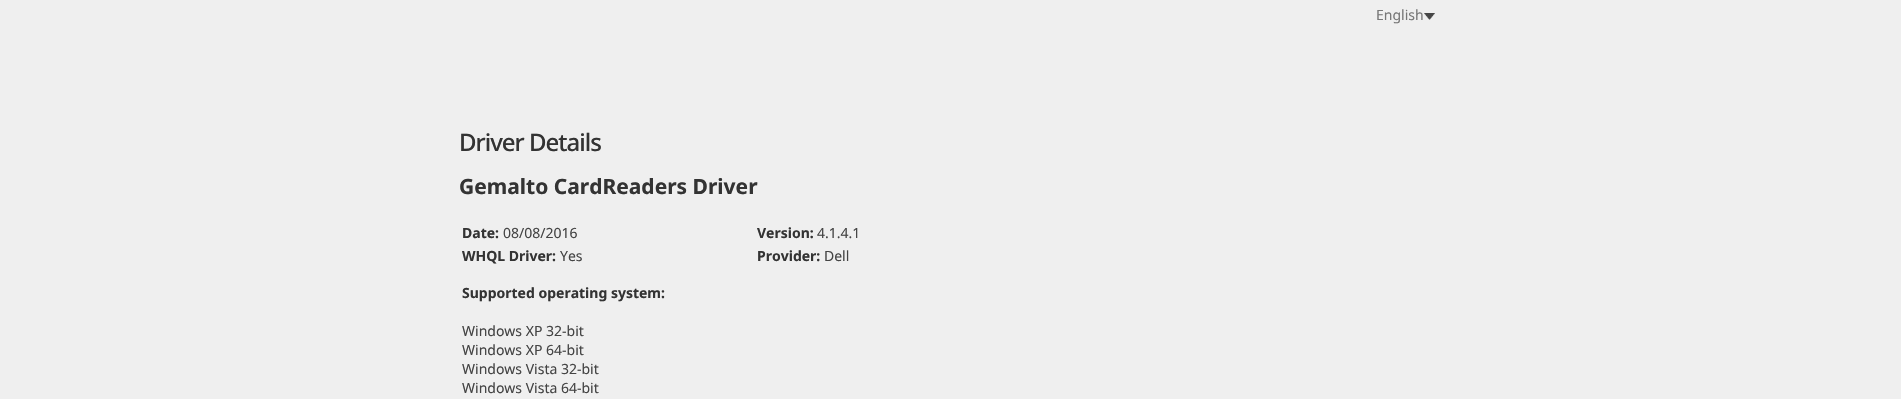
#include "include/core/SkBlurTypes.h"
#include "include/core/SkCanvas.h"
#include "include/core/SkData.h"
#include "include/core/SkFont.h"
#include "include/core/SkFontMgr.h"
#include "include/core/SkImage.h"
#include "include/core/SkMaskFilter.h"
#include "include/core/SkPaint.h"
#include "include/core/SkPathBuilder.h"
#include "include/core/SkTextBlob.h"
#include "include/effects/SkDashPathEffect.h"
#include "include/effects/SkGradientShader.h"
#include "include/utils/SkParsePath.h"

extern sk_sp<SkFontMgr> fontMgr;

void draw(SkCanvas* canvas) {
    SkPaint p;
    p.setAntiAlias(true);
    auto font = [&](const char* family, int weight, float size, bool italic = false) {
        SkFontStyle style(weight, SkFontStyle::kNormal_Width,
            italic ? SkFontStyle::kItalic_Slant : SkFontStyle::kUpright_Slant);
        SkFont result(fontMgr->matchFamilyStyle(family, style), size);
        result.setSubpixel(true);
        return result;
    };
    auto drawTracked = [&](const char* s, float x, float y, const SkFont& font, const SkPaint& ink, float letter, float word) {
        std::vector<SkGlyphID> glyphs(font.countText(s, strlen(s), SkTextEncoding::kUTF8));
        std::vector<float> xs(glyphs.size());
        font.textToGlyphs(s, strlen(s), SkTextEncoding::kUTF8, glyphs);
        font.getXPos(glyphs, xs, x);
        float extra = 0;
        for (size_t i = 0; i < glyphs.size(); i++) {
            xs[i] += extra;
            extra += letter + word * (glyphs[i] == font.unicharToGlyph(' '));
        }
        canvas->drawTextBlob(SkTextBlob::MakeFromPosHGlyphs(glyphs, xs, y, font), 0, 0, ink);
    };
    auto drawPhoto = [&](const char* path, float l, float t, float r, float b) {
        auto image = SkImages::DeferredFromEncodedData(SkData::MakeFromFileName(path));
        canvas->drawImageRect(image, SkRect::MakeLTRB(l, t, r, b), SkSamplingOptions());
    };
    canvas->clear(0xFFEFEFEF);
    auto font1 = font("Noto Sans", 400, 14);
    p.setColor(0xFF777777);
    canvas->drawString("English", 1376, 20, font1, p);
    drawPhoto("media/1.png", 1424, 13, 1435, 20);
    auto font2 = font("Noto Sans", 500, 24);
    p.setColor(0xFF333333);
    drawTracked("Driver Details", 459, 151, font2, p, -1, 0);
    auto font3 = font("Noto Sans", 700, 21);
    canvas->drawString("Gemalto CardReaders Driver", 459, 194, font3, p);
    auto font4 = font("Noto Sans", 700, 14);
    canvas->drawString("Date:", 462, 238, font4, p);
    p.setColor(0xFF444444);
    canvas->drawString("08/08/2016", 503, 238, font1, p);
    p.setColor(0xFF333333);
    canvas->drawString("Version:", 757, 238, font4, p);
    p.setColor(0xFF444444);
    canvas->drawString("4.1.4.1", 817, 238, font1, p);
    p.setColor(0xFF333333);
    canvas->drawString("WHQL Driver:", 462, 261, font4, p);
    p.setColor(0xFF444444);
    canvas->drawString("Yes", 560, 261, font1, p);
    p.setColor(0xFF333333);
    canvas->drawString("Provider:", 757, 261, font4, p);
    p.setColor(0xFF444444);
    canvas->drawString("Dell", 824, 261, font1, p);
    p.setColor(0xFF333333);
    canvas->drawString("Supported operating system:", 462, 298, font4, p);
    p.setColor(0xFF444444);
    {
        const struct { const char* s; float x, y; } items[] = {
            {"Windows XP 32-bit", 462, 336},
            {"Windows XP 64-bit", 462, 355},
            {"Windows Vista 32-bit", 462, 374},
            {"Windows Vista 64-bit", 462, 393},
        };
        for (auto [s, x, y] : items) {
            canvas->drawString(s, x, y, font1, p);
        }
    }
}
